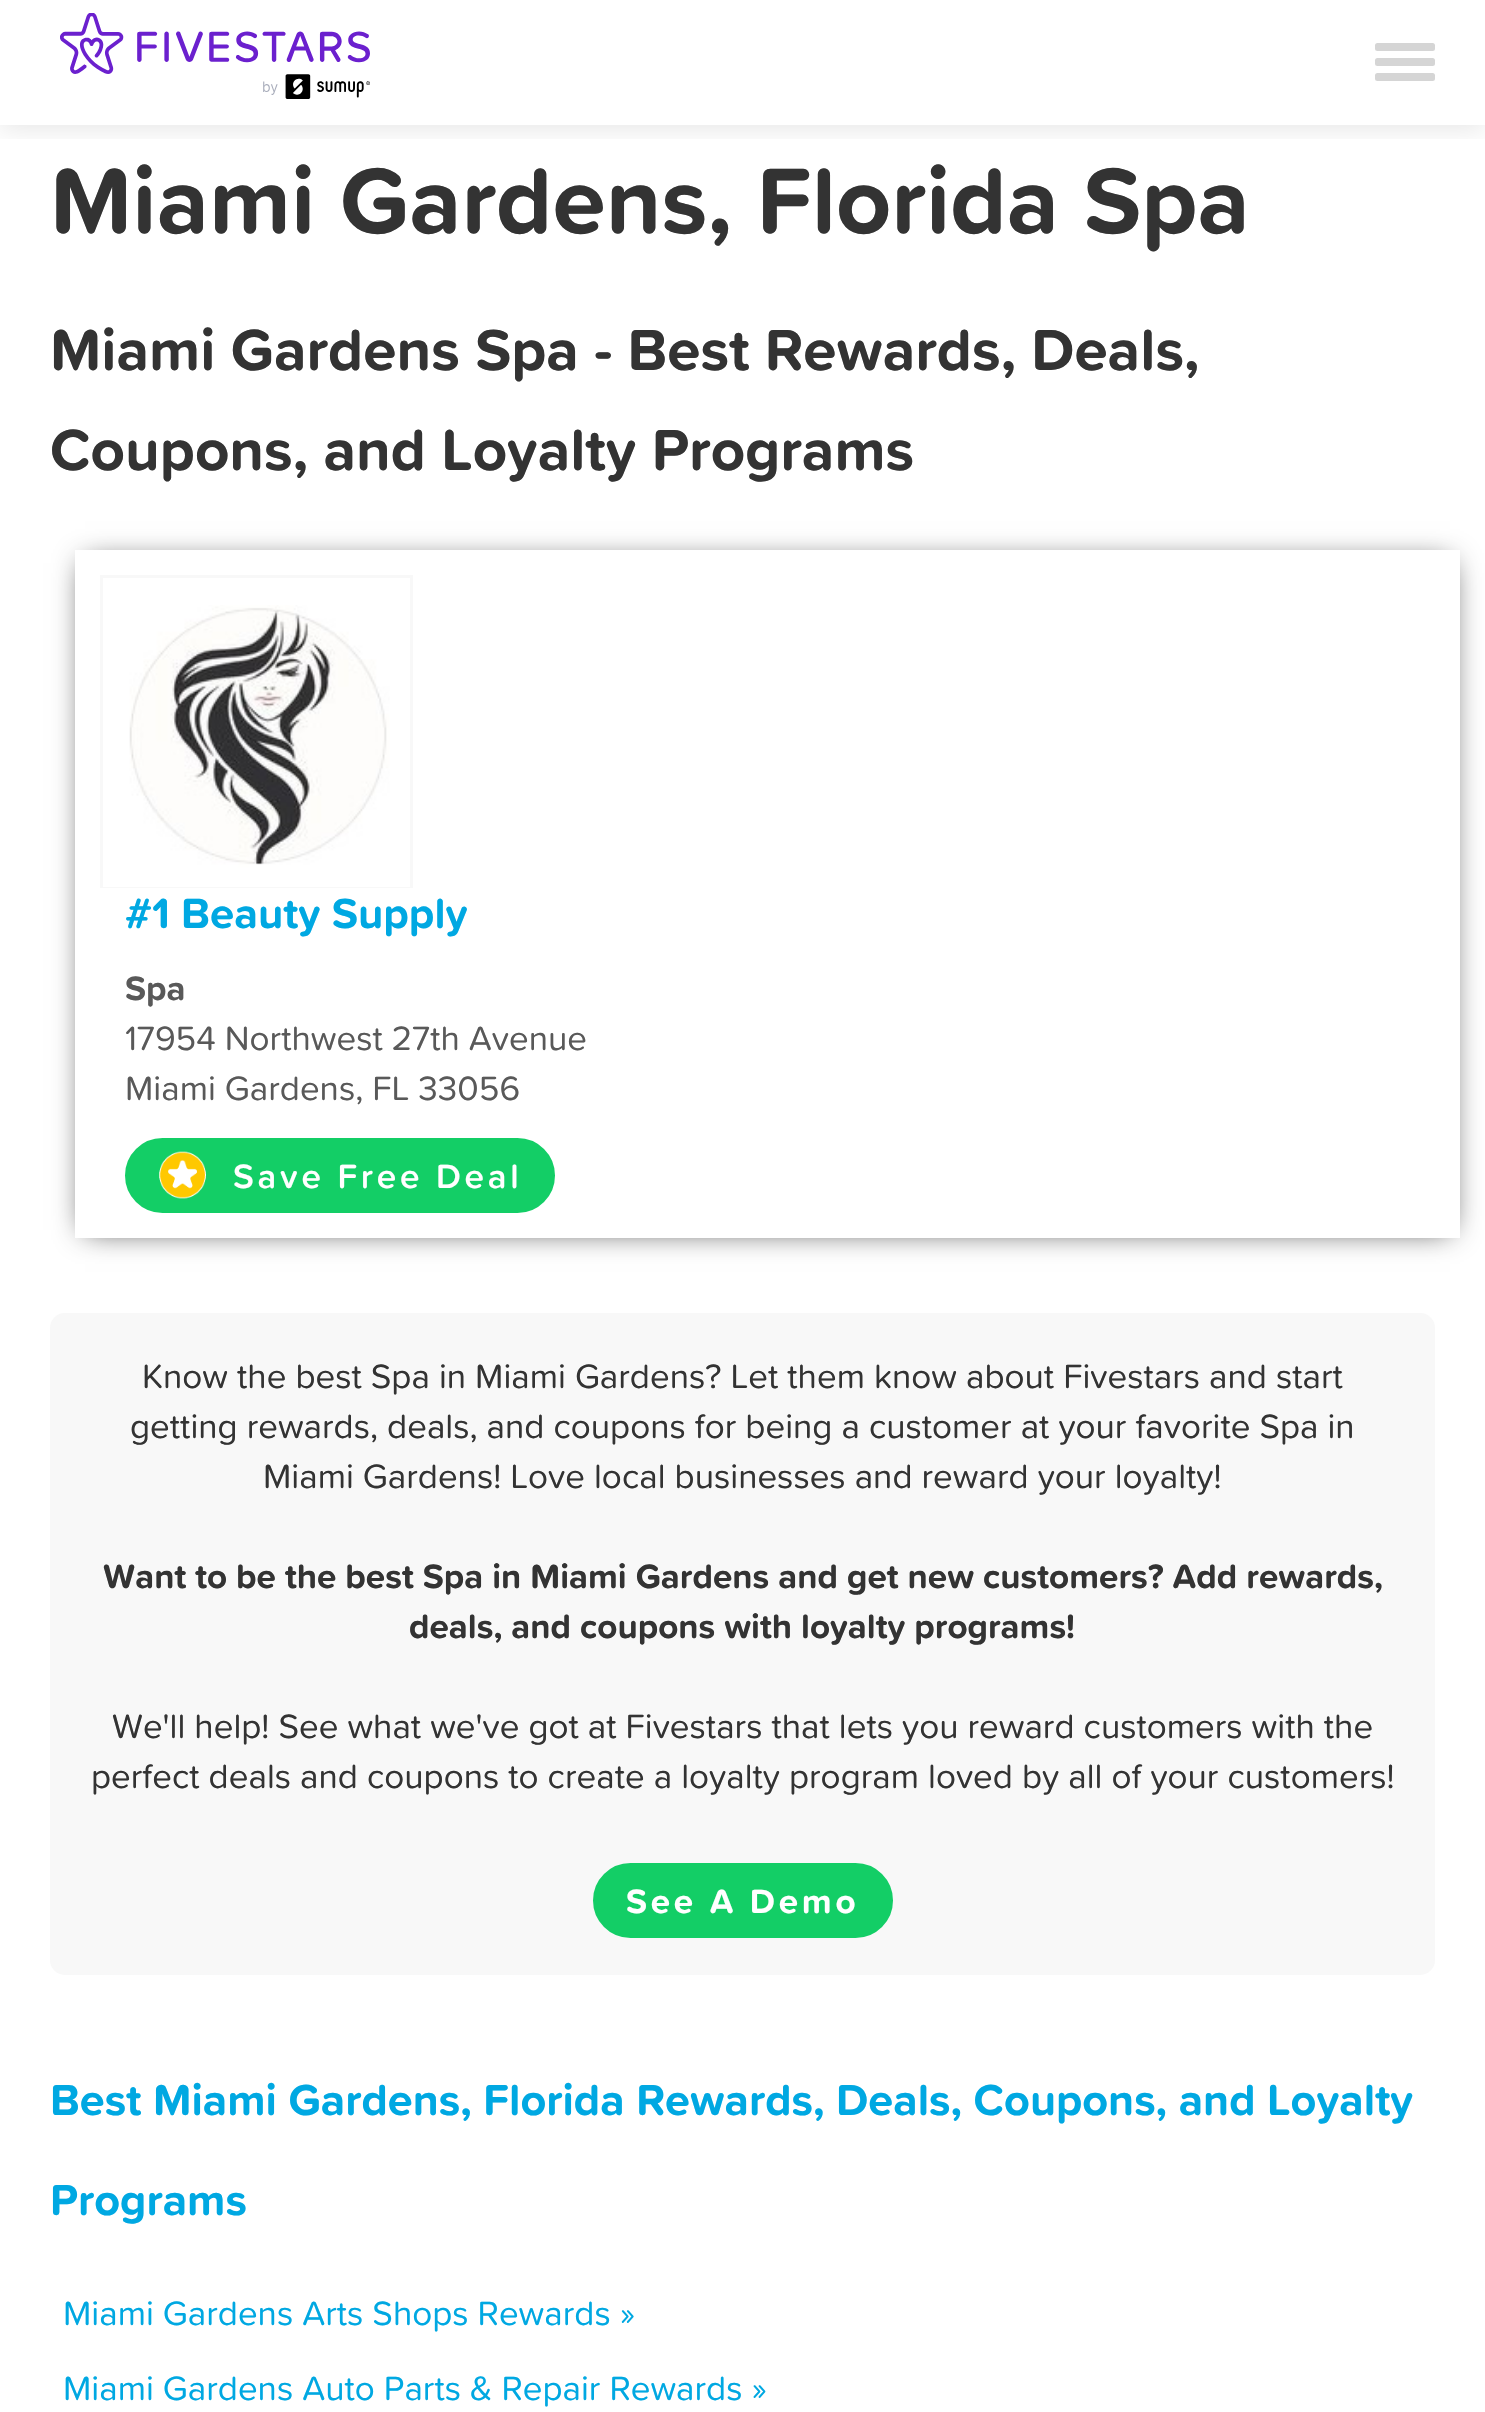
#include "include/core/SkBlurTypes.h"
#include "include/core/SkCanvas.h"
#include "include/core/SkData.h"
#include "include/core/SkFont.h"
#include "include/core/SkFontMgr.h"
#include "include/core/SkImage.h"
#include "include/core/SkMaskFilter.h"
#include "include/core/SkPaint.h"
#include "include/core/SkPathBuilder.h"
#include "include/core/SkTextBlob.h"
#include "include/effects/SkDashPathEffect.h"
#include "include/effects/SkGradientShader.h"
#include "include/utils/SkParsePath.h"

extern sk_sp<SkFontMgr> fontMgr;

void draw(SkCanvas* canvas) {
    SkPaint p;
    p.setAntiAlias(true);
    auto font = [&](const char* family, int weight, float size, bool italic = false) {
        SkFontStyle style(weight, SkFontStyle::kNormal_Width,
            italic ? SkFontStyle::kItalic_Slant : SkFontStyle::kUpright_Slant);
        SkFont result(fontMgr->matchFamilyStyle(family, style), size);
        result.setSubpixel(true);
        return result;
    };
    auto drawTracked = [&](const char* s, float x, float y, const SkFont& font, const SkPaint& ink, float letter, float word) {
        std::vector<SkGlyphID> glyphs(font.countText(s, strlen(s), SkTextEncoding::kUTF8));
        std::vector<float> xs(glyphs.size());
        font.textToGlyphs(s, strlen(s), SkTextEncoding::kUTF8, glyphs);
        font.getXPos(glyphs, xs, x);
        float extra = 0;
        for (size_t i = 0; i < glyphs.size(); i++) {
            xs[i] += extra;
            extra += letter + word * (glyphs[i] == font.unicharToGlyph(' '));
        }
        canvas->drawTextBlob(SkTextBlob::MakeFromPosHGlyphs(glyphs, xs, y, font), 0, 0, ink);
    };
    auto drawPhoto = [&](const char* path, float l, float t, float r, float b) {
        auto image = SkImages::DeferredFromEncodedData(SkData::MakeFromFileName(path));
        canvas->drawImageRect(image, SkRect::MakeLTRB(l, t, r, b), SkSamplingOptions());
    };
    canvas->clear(0xFFFFFFFF);
    canvas->save();
    canvas->clipRect(SkRect::MakeLTRB(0, 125, 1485, 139));
    p.setColor(0x1A000000);
    p.setMaskFilter(SkMaskFilter::MakeBlur(kNormal_SkBlurStyle, 12.5f));
    canvas->drawRect(SkRect::MakeLTRB(0, 3, 1485, 128), p);
    p.setMaskFilter(nullptr);
    canvas->restore();
    drawPhoto("media/1.png", 60, 13, 370, 99);
    p.setColor(0xFFD5D5D5);
    canvas->drawRoundRect(SkRect::MakeLTRB(1375, 43, 1435, 51), 2.5f, 2.5f, p);
    canvas->drawRoundRect(SkRect::MakeLTRB(1375, 58, 1435, 66), 2.5f, 2.5f, p);
    canvas->drawRoundRect(SkRect::MakeLTRB(1375, 73, 1435, 81), 2.5f, 2.5f, p);
    auto font1 = font("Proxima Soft", 700, 96.25f);
    p.setColor(0xFF333333);
    canvas->drawString("Miami Gardens, Florida Spa", 50, 233, font1, p);
    auto font2 = font("Proxima Soft", 700, 60);
    canvas->drawString("Miami Gardens Spa - Best Rewards, Deals,", 50, 370, font2, p);
    canvas->drawString("Coupons, and Loyalty Programs", 50, 470, font2, p);
    canvas->save();
    canvas->clipPath(SkPathBuilder(SkPathFillType::kEvenOdd).moveTo(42, 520).lineTo(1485, 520).lineTo(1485, 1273).lineTo(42, 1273).close().moveTo(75, 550).lineTo(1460, 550).lineTo(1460, 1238).lineTo(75, 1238).close().detach(), true);
    p.setMaskFilter(SkMaskFilter::MakeBlur(kNormal_SkBlurStyle, 14));
    canvas->drawRect(SkRect::MakeLTRB(85, 563, 1450, 1230), p);
    p.setMaskFilter(nullptr);
    canvas->restore();
    p.setStyle(SkPaint::kStroke_Style);
    p.setStrokeWidth(3);
    p.setColor(0xFFF8F8F8);
    canvas->drawRect(SkRect::MakeLTRB(101.5f, 576.5f, 411.5f, 886.5f), p);
    drawPhoto("media/2.png", 103, 605, 410, 887);
    auto font3 = font("Proxima Soft", 700, 43.75f);
    p.setStyle(SkPaint::kFill_Style);
    p.setColor(0xFF00A8E2);
    canvas->drawString("#1 Beauty Supply", 125, 928, font3, p);
    auto font4 = font("Proxima Soft", 700, 35);
    p.setColor(0xFF595959);
    canvas->drawString("Spa", 125, 1000, font4, p);
    auto font5 = font("Proxima Soft", 400, 35);
    canvas->drawString("17954 Northwest 27th Avenue", 125, 1050, font5, p);
    canvas->drawString("Miami Gardens, FL 33056", 125, 1100, font5, p);
    p.setColor(0xFF13CE66);
    canvas->drawRoundRect(SkRect::MakeLTRB(126.5f, 1139.5f, 553.5f, 1211.5f), 36, 36, p);
    p.setStyle(SkPaint::kStroke_Style);
    canvas->drawRoundRect(SkRect::MakeLTRB(126.5f, 1139.5f, 553.5f, 1211.5f), 36, 36, p);
    drawPhoto("media/3.png", 159, 1151, 206, 1199);
    auto font6 = font("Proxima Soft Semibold", 600, 35);
    p.setStyle(SkPaint::kFill_Style);
    p.setColor(0xFFFFFFFF);
    drawTracked("Save Free Deal", 233, 1188, font6, p, 3.75f, 0);
    p.setColor(0xFFF8F8F8);
    canvas->drawRoundRect(SkRect::MakeLTRB(50, 1313, 1435, 1975), 15, 15, p);
    p.setColor(0xFF333333);
    {
        const struct { const char* s; float x, y; } items[] = {
            {"Know the best Spa in Miami Gardens? Let them know about Fivestars and start", 142, 1388},
            {"getting rewards, deals, and coupons for being a customer at your favorite Spa in", 130, 1438},
            {"Miami Gardens! Love local businesses and reward your loyalty!", 263, 1488},
        };
        for (auto [s, x, y] : items) {
            canvas->drawString(s, x, y, font5, p);
        }
    }
    canvas->drawString("Want to be the best Spa in Miami Gardens and get new customers? Add rewards,", 103, 1588, font4, p);
    canvas->drawString("deals, and coupons with loyalty programs!", 409, 1638, font4, p);
    canvas->drawString("We'll help! See what we've got at Fivestars that lets you reward customers with the", 112, 1738, font5, p);
    canvas->drawString("perfect deals and coupons to create a loyalty program loved by all of your customers!", 91, 1788, font5, p);
    p.setColor(0xFF13CE66);
    canvas->drawRoundRect(SkRect::MakeLTRB(594.5f, 1864.5f, 891.5f, 1936.5f), 36, 36, p);
    p.setStyle(SkPaint::kStroke_Style);
    canvas->drawRoundRect(SkRect::MakeLTRB(594.5f, 1864.5f, 891.5f, 1936.5f), 36, 36, p);
    p.setStyle(SkPaint::kFill_Style);
    p.setColor(0xFFFFFFFF);
    drawTracked("See A Demo", 626, 1913, font4, p, 3.75f, 0);
    auto font7 = font("Proxima Soft", 700, 45);
    p.setColor(0xFF00A8E2);
    canvas->drawString("Best Miami Gardens, Florida Rewards, Deals, Coupons, and Loyalty", 50, 2115, font7, p);
    canvas->drawString("Programs", 50, 2215, font7, p);
    canvas->drawString("Miami Gardens Arts Shops Rewards »", 63, 2325, font5, p);
    canvas->drawString("Miami Gardens Auto Parts & Repair Rewards »", 63, 2400, font5, p);
}
